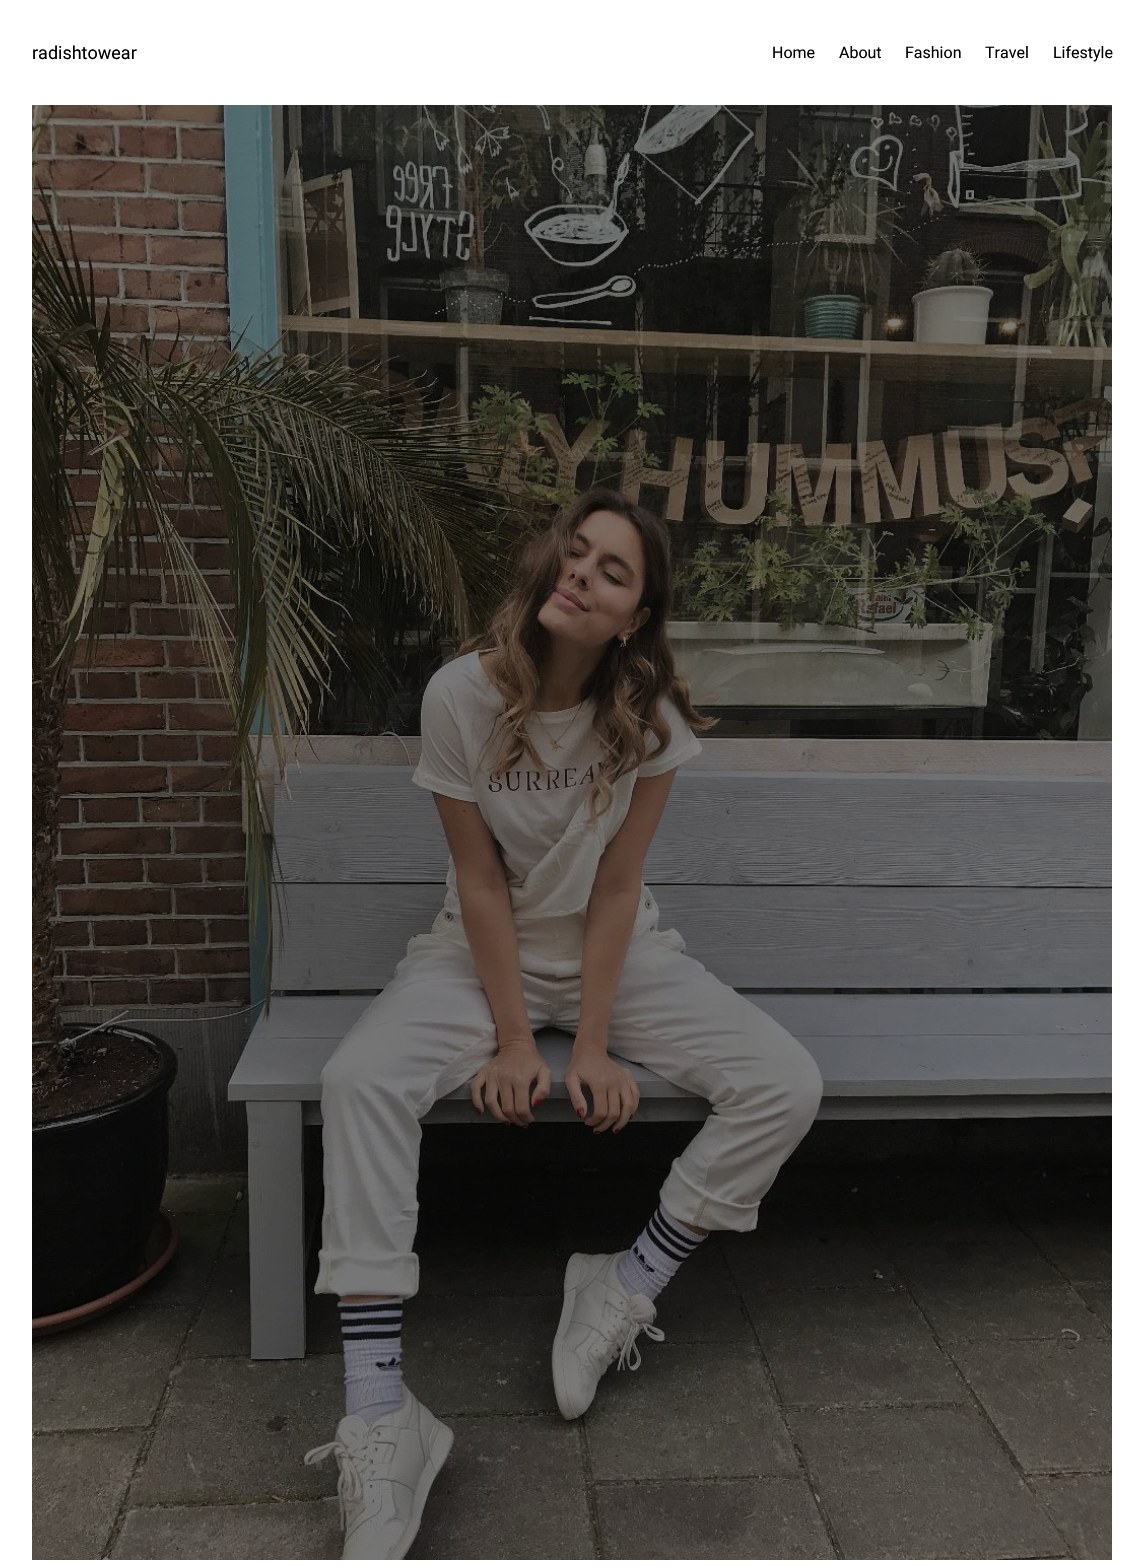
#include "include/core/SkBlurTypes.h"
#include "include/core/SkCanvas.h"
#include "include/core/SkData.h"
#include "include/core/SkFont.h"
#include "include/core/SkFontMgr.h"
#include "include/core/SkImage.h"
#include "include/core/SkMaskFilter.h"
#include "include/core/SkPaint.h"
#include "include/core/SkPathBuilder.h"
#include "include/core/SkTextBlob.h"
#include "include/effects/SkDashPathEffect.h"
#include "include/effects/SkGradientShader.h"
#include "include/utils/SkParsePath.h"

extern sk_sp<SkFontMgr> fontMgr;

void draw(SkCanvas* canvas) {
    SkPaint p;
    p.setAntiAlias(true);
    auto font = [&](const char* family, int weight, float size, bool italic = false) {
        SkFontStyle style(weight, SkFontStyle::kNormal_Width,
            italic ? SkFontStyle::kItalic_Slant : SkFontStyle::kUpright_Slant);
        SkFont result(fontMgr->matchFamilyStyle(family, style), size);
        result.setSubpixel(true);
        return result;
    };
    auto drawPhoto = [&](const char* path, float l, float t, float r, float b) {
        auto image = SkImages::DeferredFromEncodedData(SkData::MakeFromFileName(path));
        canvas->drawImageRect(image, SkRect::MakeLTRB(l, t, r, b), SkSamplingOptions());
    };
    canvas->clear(0xFFFFFFFF);
    auto font1 = font("Roboto", 400, 18);
    p.setColor(0xFF000000);
    canvas->drawString("radishtowear", 32, 59, font1, p);
    auto font2 = font("Roboto", 400, 16);
    {
        const struct { const char* s; float x, y; } items[] = {
            {"Home", 772, 58},
            {"About", 839, 58},
            {"Fashion", 905, 58},
            {"Travel", 985, 58},
            {"Lifestyle", 1053, 58},
        };
        for (auto [s, x, y] : items) {
            canvas->drawString(s, x, y, font2, p);
        }
    }
    drawPhoto("media/1.png", 32, 105, 1112, 1560);
}
